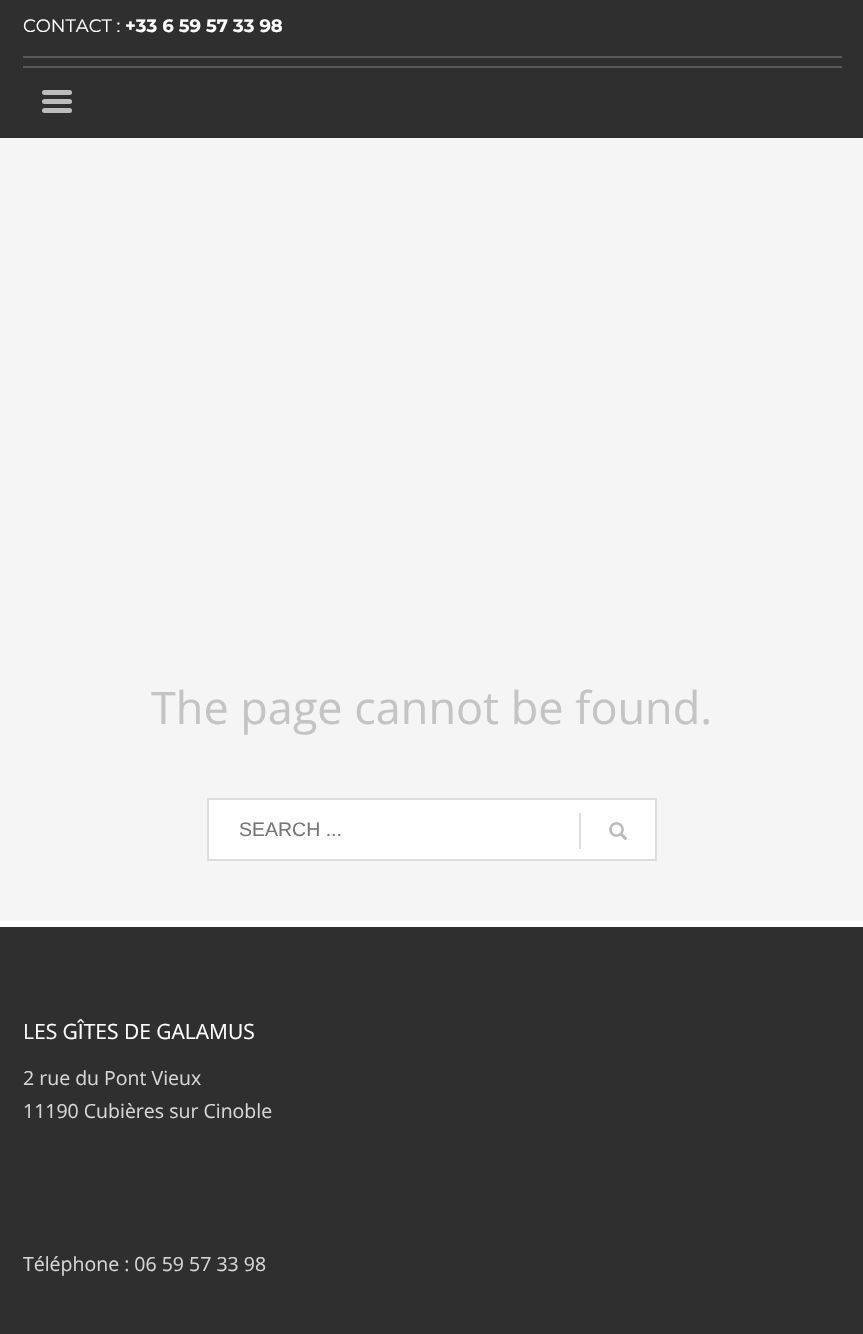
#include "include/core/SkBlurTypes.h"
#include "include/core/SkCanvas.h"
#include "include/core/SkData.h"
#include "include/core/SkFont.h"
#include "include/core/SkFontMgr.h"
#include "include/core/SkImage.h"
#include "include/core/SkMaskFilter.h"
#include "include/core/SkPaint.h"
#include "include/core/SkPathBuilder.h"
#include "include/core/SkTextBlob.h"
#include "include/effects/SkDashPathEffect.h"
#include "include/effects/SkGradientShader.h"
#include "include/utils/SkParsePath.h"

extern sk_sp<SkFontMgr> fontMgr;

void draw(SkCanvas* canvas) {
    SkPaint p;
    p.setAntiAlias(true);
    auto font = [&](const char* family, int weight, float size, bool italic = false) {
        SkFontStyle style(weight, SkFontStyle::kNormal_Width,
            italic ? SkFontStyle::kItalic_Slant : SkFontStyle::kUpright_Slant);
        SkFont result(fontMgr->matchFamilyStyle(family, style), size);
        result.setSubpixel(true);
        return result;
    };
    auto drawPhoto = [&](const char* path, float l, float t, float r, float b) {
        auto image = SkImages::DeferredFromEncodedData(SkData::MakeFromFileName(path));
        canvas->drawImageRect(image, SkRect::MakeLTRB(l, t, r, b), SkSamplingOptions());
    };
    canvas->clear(0xFFF5F5F5);
    p.setColor(0xFF2F2F2F);
    canvas->drawRect(SkRect::MakeLTRB(0, 0, 863, 138), p);
    auto font1 = font("Montserrat", 400, 18);
    p.setColor(0xFFFFFFFF);
    canvas->drawString("CONTACT :", 23, 32, font1, p);
    auto font2 = font("Montserrat", 700, 18);
    canvas->drawString("+33 6 59 57 33 98", 125, 32, font2, p);
    p.setColor(0xFF595959);
    canvas->drawRect(SkRect::MakeLTRB(23, 56, 842, 58), p);
    canvas->drawRect(SkRect::MakeLTRB(23, 66, 842, 68), p);
    p.setColor(0xFFBCBCBC);
    canvas->drawRoundRect(SkRect::MakeLTRB(42, 90, 72, 95), 2.5f, 2.5f, p);
    canvas->drawRoundRect(SkRect::MakeLTRB(42, 99, 72, 104), 2.5f, 2.5f, p);
    canvas->drawRoundRect(SkRect::MakeLTRB(42, 108, 72, 113), 2.5f, 2.5f, p);
    auto font3 = font("Open Sans", 400, 45);
    p.setColor(0xFFC4C4C4);
    canvas->drawString("The page cannot be found.", 151, 724, font3, p);
    p.setColor(0xFFFFFFFF);
    canvas->drawRect(SkRect::MakeLTRB(208, 799, 656, 860), p);
    p.setStyle(SkPaint::kStroke_Style);
    p.setStrokeWidth(2);
    p.setColor(0xFFDDDDDD);
    canvas->drawRect(SkRect::MakeLTRB(208, 799, 656, 860), p);
    auto font4 = font("Liberation Sans", 400, 19.5f);
    p.setStyle(SkPaint::kFill_Style);
    p.setColor(0xFF757575);
    canvas->drawString("SEARCH ...", 239, 836, font4, p);
    p.setColor(0xFFDDDDDD);
    canvas->drawRect(SkRect::MakeLTRB(579, 813, 581, 849), p);
    drawPhoto("media/1.png", 609, 822, 627, 840);
    p.setColor(0xFF2F2F2F);
    canvas->drawRect(SkRect::MakeLTRB(0, 927, 863, 1334), p);
    p.setColor(0xFFFFFFFF);
    canvas->drawRect(SkRect::MakeLTRB(0, 921, 863, 927), p);
    auto font5 = font("Open Sans", 400, 21);
    canvas->drawString("LES GÎTES DE GALAMUS", 23, 1039, font5, p);
    auto font6 = font("Open Sans", 400, 19.5f);
    p.setColor(0xFFD5D5D5);
    {
        const struct { const char* s; float x, y; } items[] = {
            {"2 rue du Pont Vieux", 23, 1085},
            {"11190 Cubières sur Cinoble", 23, 1118},
            {"Téléphone : 06 59 57 33 98", 23, 1271},
        };
        for (auto [s, x, y] : items) {
            canvas->drawString(s, x, y, font6, p);
        }
    }
}
